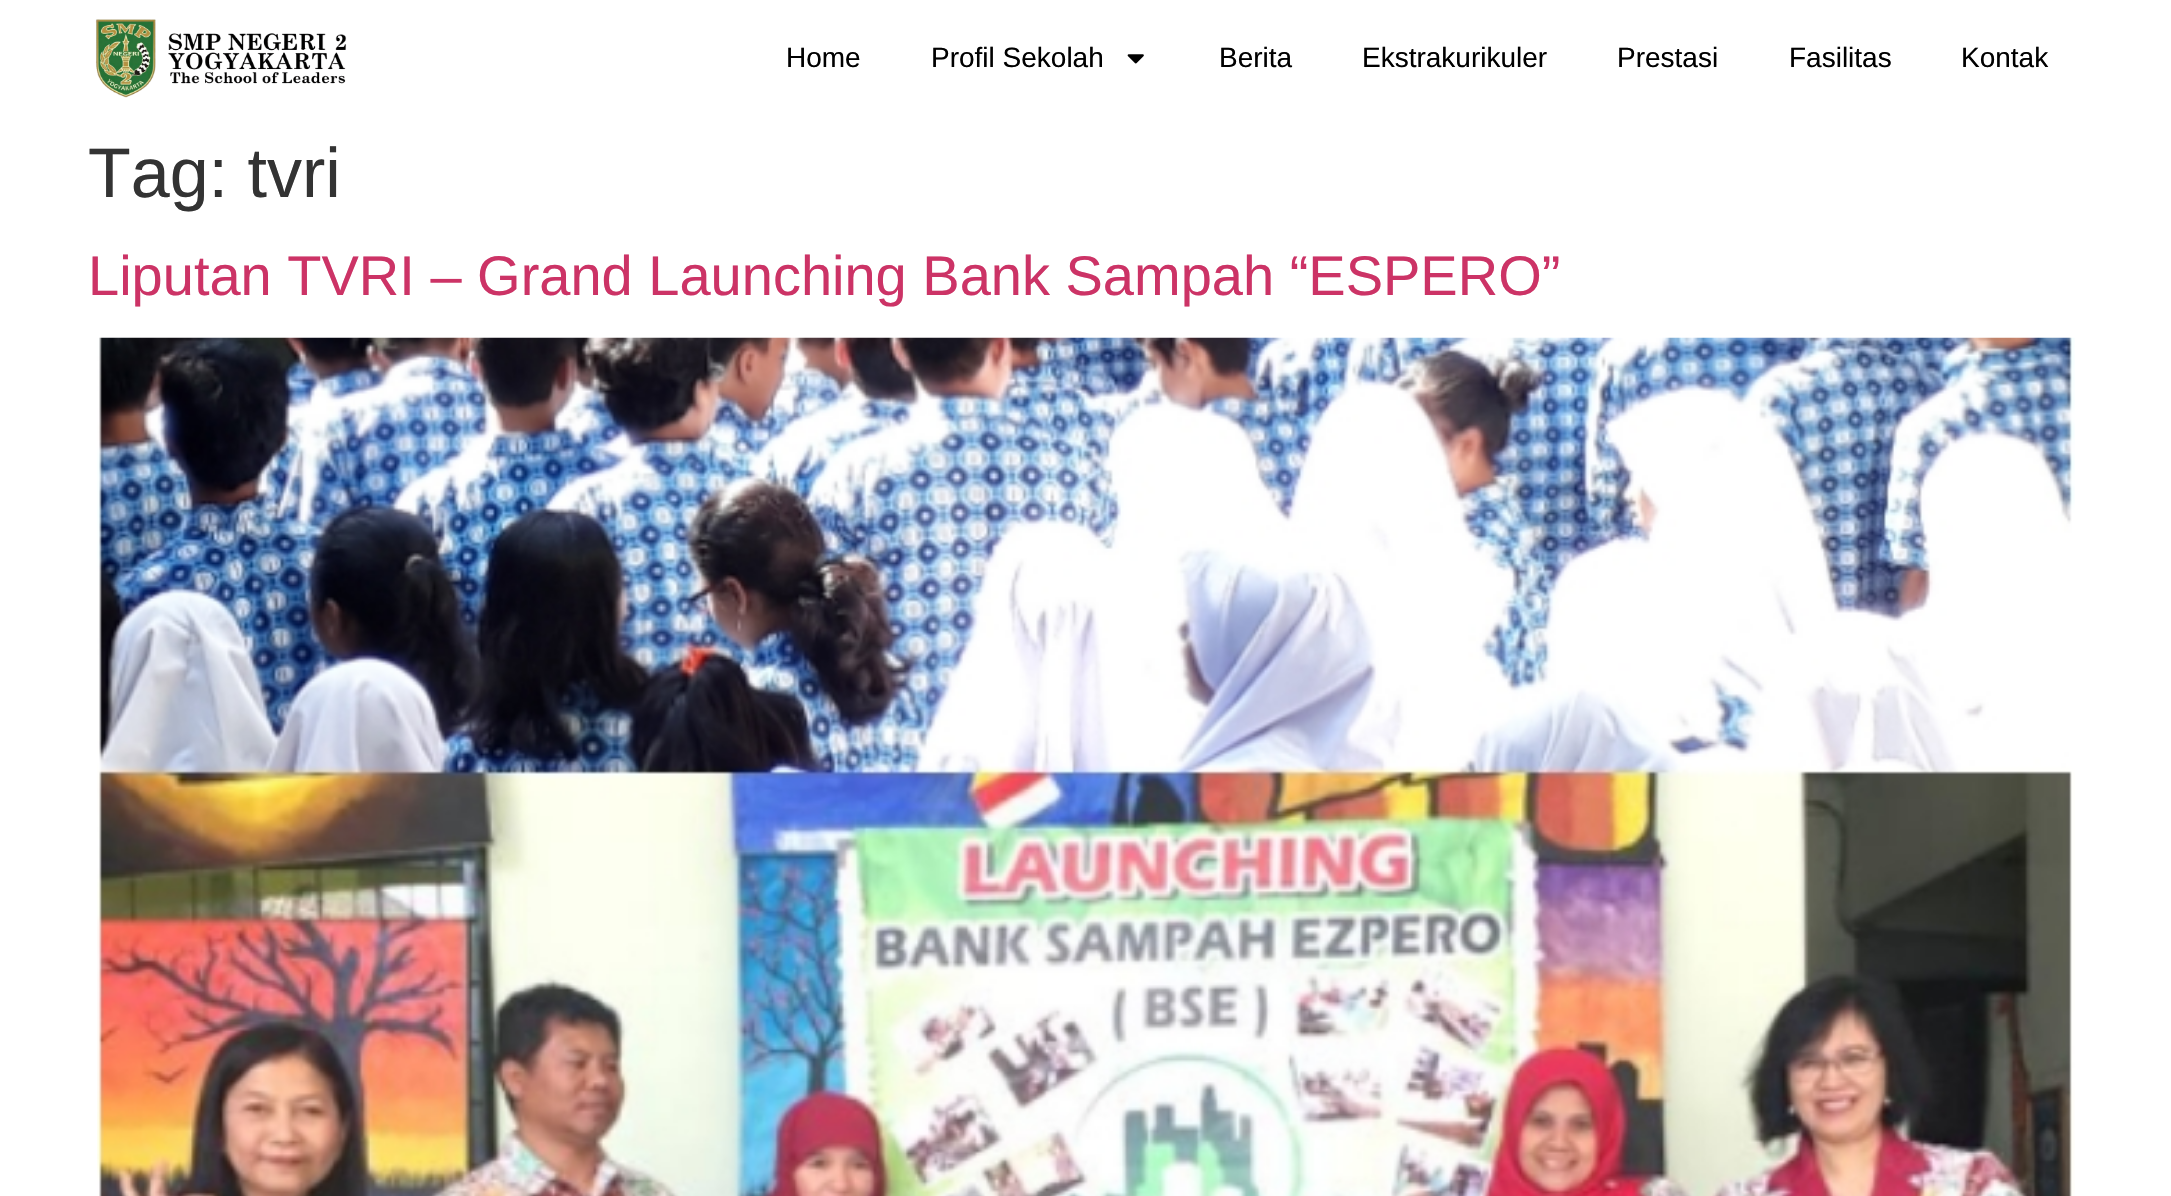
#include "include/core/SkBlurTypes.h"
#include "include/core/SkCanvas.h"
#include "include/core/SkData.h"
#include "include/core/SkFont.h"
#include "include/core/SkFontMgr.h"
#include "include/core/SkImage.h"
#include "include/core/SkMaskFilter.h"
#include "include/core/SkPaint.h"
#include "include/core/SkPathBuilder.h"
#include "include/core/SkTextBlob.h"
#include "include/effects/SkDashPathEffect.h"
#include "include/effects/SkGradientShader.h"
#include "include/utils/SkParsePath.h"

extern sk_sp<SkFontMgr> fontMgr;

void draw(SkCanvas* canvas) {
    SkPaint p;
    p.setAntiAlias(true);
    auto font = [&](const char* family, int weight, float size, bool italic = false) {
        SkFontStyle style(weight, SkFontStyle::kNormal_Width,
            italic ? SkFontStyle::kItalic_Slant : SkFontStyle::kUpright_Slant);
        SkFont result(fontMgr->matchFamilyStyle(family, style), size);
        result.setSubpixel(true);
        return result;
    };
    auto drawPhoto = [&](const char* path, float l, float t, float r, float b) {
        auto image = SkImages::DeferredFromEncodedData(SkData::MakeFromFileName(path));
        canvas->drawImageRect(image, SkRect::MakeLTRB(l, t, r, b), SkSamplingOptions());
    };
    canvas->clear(0xFFFFFFFF);
    drawPhoto("media/1.png", 95, 19, 347, 98);
    auto font1 = font("Liberation Sans", 400, 28);
    p.setColor(0xFF000000);
    canvas->drawString("Home", 786, 67, font1, p);
    canvas->drawString("Profil Sekolah", 931, 67, font1, p);
    drawPhoto("media/2.png", 1127, 54, 1144, 64);
    {
        const struct { const char* s; float x, y; } items[] = {
            {"Berita", 1219, 67},
            {"Ekstrakurikuler", 1362, 67},
            {"Prestasi", 1617, 67},
            {"Fasilitas", 1789, 67},
            {"Kontak", 1961, 67},
        };
        for (auto [s, x, y] : items) {
            canvas->drawString(s, x, y, font1, p);
        }
    }
    auto font2 = font("Liberation Sans", 400, 70);
    p.setColor(0xFF333333);
    canvas->drawString("Tag: tvri", 88, 197, font2, p);
    auto font3 = font("Liberation Sans", 400, 56);
    p.setColor(0xFFCC3366);
    canvas->drawString("Liputan TVRI – Grand Launching Bank Sampah “ESPERO”", 88, 295, font3, p);
    drawPhoto("media/3.png", 97, 337, 2075, 1196);
}
